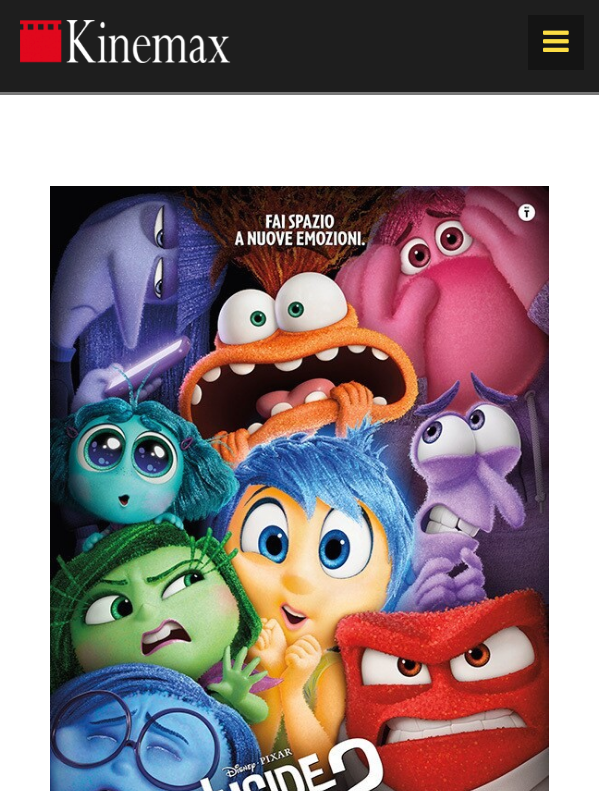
#include "include/core/SkBlurTypes.h"
#include "include/core/SkCanvas.h"
#include "include/core/SkData.h"
#include "include/core/SkFont.h"
#include "include/core/SkFontMgr.h"
#include "include/core/SkImage.h"
#include "include/core/SkMaskFilter.h"
#include "include/core/SkPaint.h"
#include "include/core/SkPathBuilder.h"
#include "include/core/SkTextBlob.h"
#include "include/effects/SkDashPathEffect.h"
#include "include/effects/SkGradientShader.h"
#include "include/utils/SkParsePath.h"

extern sk_sp<SkFontMgr> fontMgr;

void draw(SkCanvas* canvas) {
    SkPaint p;
    p.setAntiAlias(true);
    auto drawPhoto = [&](const char* path, float l, float t, float r, float b) {
        auto image = SkImages::DeferredFromEncodedData(SkData::MakeFromFileName(path));
        canvas->drawImageRect(image, SkRect::MakeLTRB(l, t, r, b), SkSamplingOptions());
    };
    canvas->clear(0xFFFFFFFF);
    p.setColor(0xFF1E1E1E);
    canvas->drawRect(SkRect::MakeLTRB(0, 0, 599, 92), p);
    p.setColor(0xFF787878);
    canvas->drawRect(SkRect::MakeLTRB(0, 92, 599, 95), p);
    drawPhoto("media/1.png", 20, 20, 231, 63);
    p.setColor(0xFF141414);
    canvas->drawRect(SkRect::MakeLTRB(528, 15, 584, 70), p);
    drawPhoto("media/2.png", 543, 30, 569, 52);
    drawPhoto("media/3.png", 50, 186, 549, 791);
}
